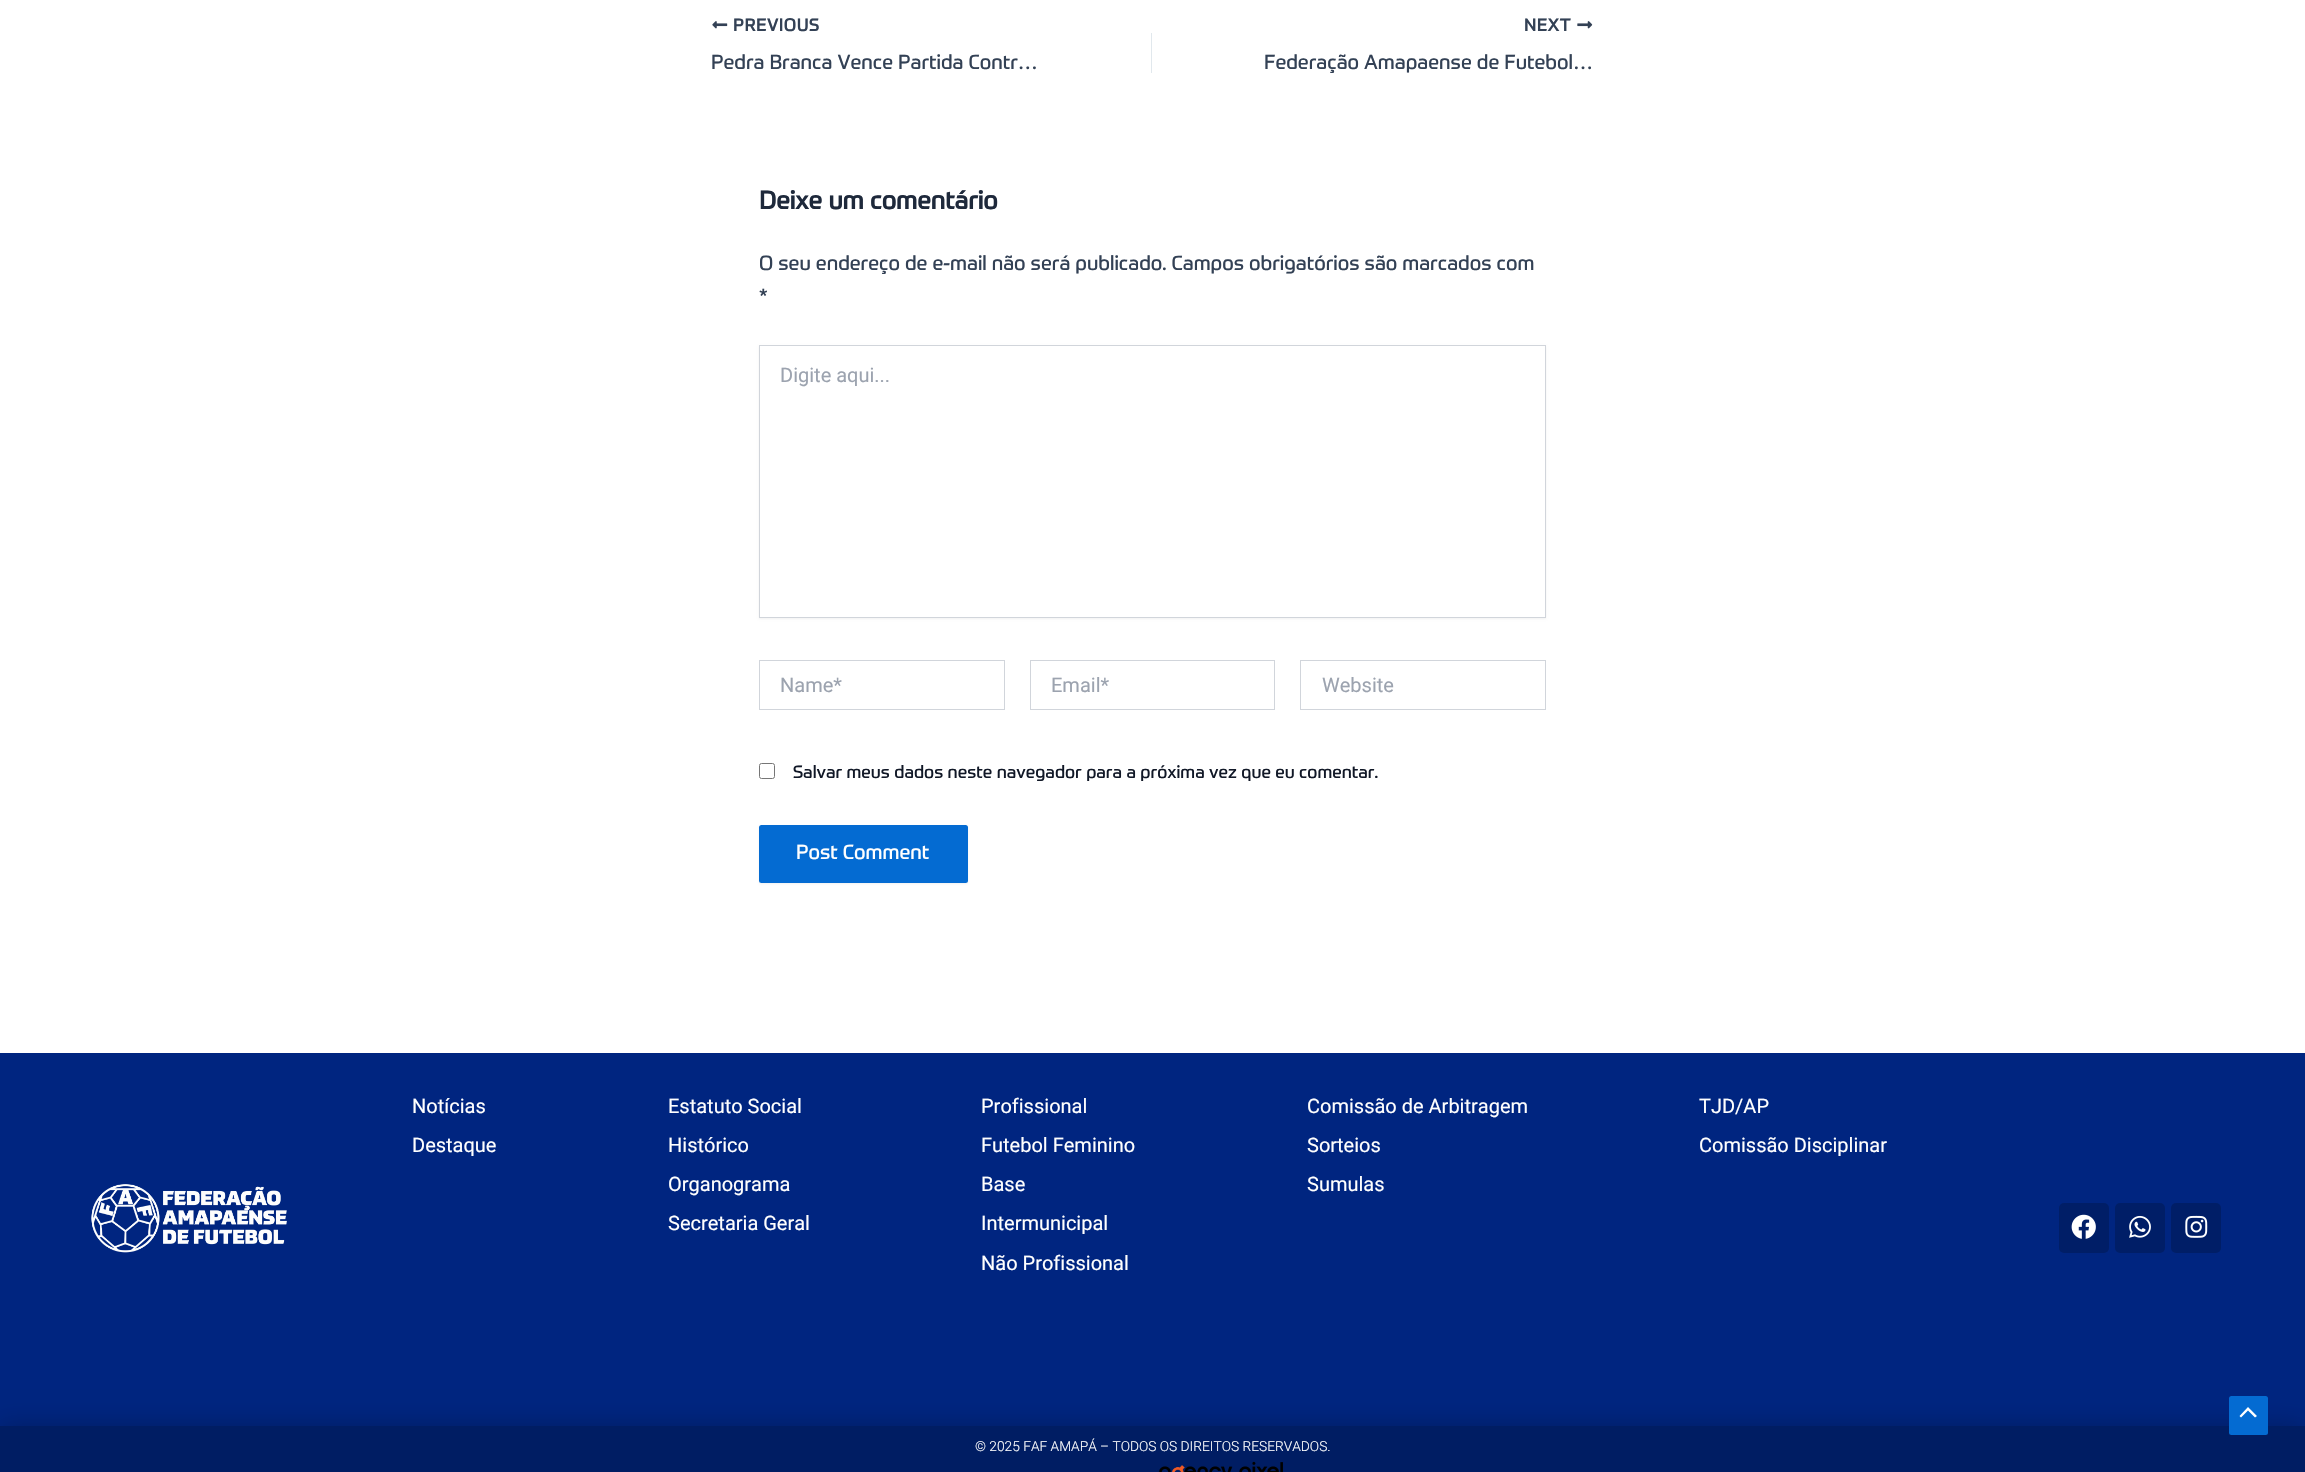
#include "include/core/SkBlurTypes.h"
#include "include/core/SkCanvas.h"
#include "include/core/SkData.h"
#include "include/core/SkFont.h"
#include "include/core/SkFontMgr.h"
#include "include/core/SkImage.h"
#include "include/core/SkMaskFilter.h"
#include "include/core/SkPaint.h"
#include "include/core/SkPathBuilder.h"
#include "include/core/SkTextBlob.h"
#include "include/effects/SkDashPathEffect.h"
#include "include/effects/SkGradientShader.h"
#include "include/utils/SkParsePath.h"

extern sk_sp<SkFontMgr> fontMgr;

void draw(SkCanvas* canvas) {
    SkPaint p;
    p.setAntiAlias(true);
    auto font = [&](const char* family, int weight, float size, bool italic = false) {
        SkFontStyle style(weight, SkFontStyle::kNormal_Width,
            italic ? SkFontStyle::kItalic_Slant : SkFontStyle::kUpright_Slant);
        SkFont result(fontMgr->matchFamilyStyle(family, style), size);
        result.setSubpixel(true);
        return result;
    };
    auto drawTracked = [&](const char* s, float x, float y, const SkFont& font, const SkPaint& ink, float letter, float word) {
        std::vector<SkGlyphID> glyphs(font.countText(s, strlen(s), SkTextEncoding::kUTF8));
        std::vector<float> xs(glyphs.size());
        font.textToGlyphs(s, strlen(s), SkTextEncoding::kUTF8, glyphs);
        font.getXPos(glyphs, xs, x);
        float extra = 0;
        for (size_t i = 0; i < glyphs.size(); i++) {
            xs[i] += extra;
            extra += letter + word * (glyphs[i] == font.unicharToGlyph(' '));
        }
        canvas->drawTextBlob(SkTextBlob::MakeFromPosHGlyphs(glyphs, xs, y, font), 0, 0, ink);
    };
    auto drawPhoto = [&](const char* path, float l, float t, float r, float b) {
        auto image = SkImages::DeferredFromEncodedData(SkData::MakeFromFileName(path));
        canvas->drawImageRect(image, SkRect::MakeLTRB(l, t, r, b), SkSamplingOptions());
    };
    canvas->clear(0xFFFFFFFF);
    drawPhoto("media/1.png", 712, 21, 728, 29);
    auto font1 = font("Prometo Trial", 700, 17);
    p.setColor(0xFF334155);
    drawTracked("PREVIOUS", 733, 31, font1, p, 0.75f, 0);
    auto font2 = font("Prometo Trial", 400, 20);
    canvas->drawString("Pedra Branca Vence Partida Contr…", 711, 69, font2, p);
    p.setColor(0xFFE1E8ED);
    canvas->drawRect(SkRect::MakeLTRB(1151, 33, 1152, 73), p);
    p.setColor(0xFF334155);
    drawTracked("NEXT", 1524, 31, font1, p, 0.75f, 0);
    drawPhoto("media/2.png", 1577, 21, 1593, 29);
    canvas->drawString("Federação Amapaense de Futebol…", 1264, 69, font2, p);
    auto font3 = font("Prometo Trial", 700, 25);
    p.setColor(0xFF1E293B);
    canvas->drawString("Deixe um comentário", 759, 209, font3, p);
    p.setColor(0xFF334155);
    canvas->drawString("O seu endereço de e-mail não será publicado. Campos obrigatórios são marcados com", 759, 270, font2, p);
    canvas->drawString("*", 759, 303, font2, p);
    p.setColor(0x0D000000);
    p.setMaskFilter(SkMaskFilter::MakeBlur(kNormal_SkBlurStyle, 1));
    canvas->drawRect(SkRect::MakeLTRB(759, 346, 1546, 619), p);
    p.setMaskFilter(nullptr);
    p.setColor(0xFFFFFFFF);
    canvas->drawRect(SkRect::MakeLTRB(759.5f, 345.5f, 1545.5f, 617.5f), p);
    p.setStyle(SkPaint::kStroke_Style);
    p.setStrokeWidth(1);
    p.setColor(0xFFD1D5DB);
    canvas->drawRect(SkRect::MakeLTRB(759.5f, 345.5f, 1545.5f, 617.5f), p);
    auto font4 = font("Roboto", 400, 20);
    p.setStyle(SkPaint::kFill_Style);
    p.setColor(0xFF9CA3AF);
    canvas->drawString("Digite aqui...", 780, 382, font4, p);
    p.setStyle(SkPaint::kStroke_Style);
    p.setColor(0xFFD1D5DB);
    canvas->drawRect(SkRect::MakeLTRB(759.5f, 660.5f, 1004.5f, 709.5f), p);
    p.setStyle(SkPaint::kFill_Style);
    p.setColor(0xFF9CA3AF);
    canvas->drawString("Name*", 780, 692, font4, p);
    p.setStyle(SkPaint::kStroke_Style);
    p.setColor(0xFFD1D5DB);
    canvas->drawRect(SkRect::MakeLTRB(1030.5f, 660.5f, 1274.5f, 709.5f), p);
    p.setStyle(SkPaint::kFill_Style);
    p.setColor(0xFF9CA3AF);
    canvas->drawString("Email*", 1051, 692, font4, p);
    p.setStyle(SkPaint::kStroke_Style);
    p.setColor(0xFFD1D5DB);
    canvas->drawRect(SkRect::MakeLTRB(1300.5f, 660.5f, 1545.5f, 709.5f), p);
    p.setStyle(SkPaint::kFill_Style);
    p.setColor(0xFF9CA3AF);
    canvas->drawString("Website", 1322, 692, font4, p);
    p.setStyle(SkPaint::kStroke_Style);
    p.setColor(0xFF767676);
    canvas->drawRoundRect(SkRect::MakeLTRB(759.5f, 763.5f, 774.5f, 778.5f), 2, 2, p);
    auto font5 = font("Prometo Trial", 400, 17.5f);
    p.setStyle(SkPaint::kFill_Style);
    p.setColor(0xFF111827);
    canvas->drawString("Salvar meus dados neste navegador para a próxima vez que eu comentar.", 793, 778, font5, p);
    p.setColor(0x0D000000);
    p.setMaskFilter(SkMaskFilter::MakeBlur(kNormal_SkBlurStyle, 1));
    canvas->drawRoundRect(SkRect::MakeLTRB(759, 826, 968, 884), 2.5f, 2.5f, p);
    p.setMaskFilter(nullptr);
    p.setColor(0xFF046BD2);
    canvas->drawRoundRect(SkRect::MakeLTRB(759, 825, 968, 883), 2.5f, 2.5f, p);
    p.setColor(0xFFFFFFFF);
    canvas->drawString("Post Comment", 796, 859, font2, p);
    p.setColor(0xFF002580);
    canvas->drawRect(SkRect::MakeLTRB(0, 1053, 2305, 1426), p);
    p.setColor(0xFFFFFFFF);
    {
        const struct { const char* s; float x, y; } items[] = {
            {"Notícias", 412, 1113},
            {"Destaque", 412, 1152},
            {"Estatuto Social", 668, 1113},
            {"Histórico", 668, 1152},
            {"Organograma", 668, 1191},
            {"Secretaria Geral", 668, 1230},
            {"Profissional", 981, 1113},
            {"Futebol Feminino", 981, 1152},
            {"Base", 981, 1191},
            {"Intermunicipal", 981, 1230},
            {"Não Profissional", 981, 1270},
            {"Comissão de Arbitragem", 1307, 1113},
            {"Sorteios", 1307, 1152},
            {"Sumulas", 1307, 1191},
            {"TJD/AP", 1699, 1113},
            {"Comissão Disciplinar", 1699, 1152},
        };
        for (auto [s, x, y] : items) {
            canvas->drawString(s, x, y, font4, p);
        }
    }
    drawPhoto("media/3.png", 91, 1184, 287, 1253);
    p.setColor(0xFF001E67);
    canvas->drawRoundRect(SkRect::MakeLTRB(2059, 1203, 2109, 1253), 5, 5, p);
    drawPhoto("media/4.png", 2071, 1214, 2096, 1239);
    canvas->drawRoundRect(SkRect::MakeLTRB(2115, 1203, 2165, 1253), 5, 5, p);
    drawPhoto("media/5.png", 2129, 1215, 2151, 1238);
    canvas->drawRoundRect(SkRect::MakeLTRB(2171, 1203, 2221, 1253), 5, 5, p);
    drawPhoto("media/6.png", 2185, 1215, 2208, 1238);
    p.setColor(0x3B000000);
    p.setMaskFilter(SkMaskFilter::MakeBlur(kNormal_SkBlurStyle, 12.5f));
    canvas->drawRect(SkRect::MakeLTRB(0, 1426, 2305, 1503), p);
    p.setMaskFilter(nullptr);
    p.setColor(0xFF001D63);
    canvas->drawRect(SkRect::MakeLTRB(0, 1426, 2305, 1472), p);
    auto font6 = font("Roboto", 300, 13.75f);
    p.setColor(0xFFFFFFFF);
    canvas->drawString("© 2025 FAF AMAPÁ – TODOS OS DIREITOS RESERVADOS.", 975, 1451, font6, p);
    drawPhoto("media/7.png", 1158, 1461, 1283, 1472);
    p.setColor(0xFF046BD2);
    canvas->drawRoundRect(SkRect::MakeLTRB(2229, 1396, 2268, 1435), 2.5f, 2.5f, p);
    p.setColor(0xFFFFFFFF);
    canvas->drawPath(SkPathBuilder().moveTo(2257, 1416).lineTo(2248, 1407).lineTo(2239.5f, 1416).lineTo(2241, 1417.5f).lineTo(2248, 1410.5f).lineTo(2255, 1417.5f).close().detach(), p);
}
